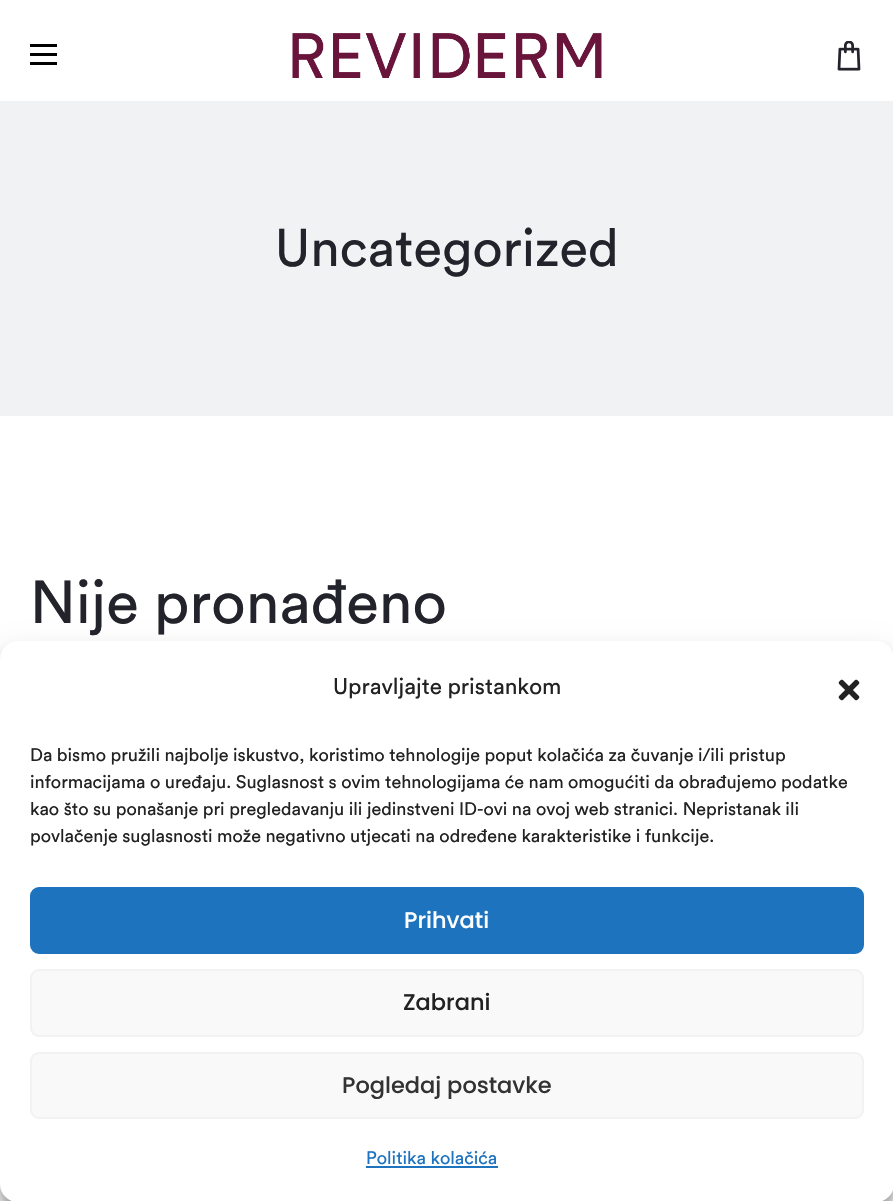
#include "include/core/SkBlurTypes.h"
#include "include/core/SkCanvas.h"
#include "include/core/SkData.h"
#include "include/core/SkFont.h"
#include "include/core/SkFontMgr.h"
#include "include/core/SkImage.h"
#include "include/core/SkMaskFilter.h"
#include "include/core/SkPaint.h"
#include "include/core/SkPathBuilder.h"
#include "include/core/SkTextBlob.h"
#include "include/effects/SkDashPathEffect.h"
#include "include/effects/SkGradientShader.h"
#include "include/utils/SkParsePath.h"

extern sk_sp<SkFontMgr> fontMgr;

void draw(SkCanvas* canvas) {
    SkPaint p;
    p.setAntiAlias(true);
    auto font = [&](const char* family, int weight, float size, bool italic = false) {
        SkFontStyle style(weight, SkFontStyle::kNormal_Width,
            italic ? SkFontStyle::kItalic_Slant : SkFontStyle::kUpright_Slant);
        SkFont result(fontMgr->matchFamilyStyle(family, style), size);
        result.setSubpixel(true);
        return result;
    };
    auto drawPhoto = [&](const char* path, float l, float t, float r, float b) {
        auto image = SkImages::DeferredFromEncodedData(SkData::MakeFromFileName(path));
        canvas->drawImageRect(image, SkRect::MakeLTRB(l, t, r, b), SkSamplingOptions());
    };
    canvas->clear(0xFFFFFFFF);
    {
        const struct { float l, t, r, b; SkColor color; } items[] = {
            {30, 53, 57, 56, 0xFF000000},
            {30, 44, 57, 47, 0xFF000000},
            {30, 62, 57, 65, 0xFF000000},
        };
        for (auto [l, t, r, b, color] : items) {
            p.setColor(color);
            canvas->drawRect(SkRect::MakeLTRB(l, t, r, b), p);
        }
    }
    drawPhoto("media/1.png", 292, 33, 602, 78);
    drawPhoto("media/2.png", 837, 41, 861, 71);
    p.setColor(0xFFF1F2F4);
    canvas->drawRect(SkRect::MakeLTRB(0, 101, 893, 416), p);
    auto font1 = font("Circular", 400, 52.5f);
    p.setColor(0xFF23232C);
    canvas->drawString("Uncategorized", 275, 266, font1, p);
    auto font2 = font("Circular", 400, 60);
    canvas->drawString("Nije pronađeno", 30, 623, font2, p);
    p.setColor(0xFFFAFAFA);
    canvas->drawRect(SkRect::MakeLTRB(0, 1184, 893, 1201), p);
    p.setColor(0x3B000000);
    p.setMaskFilter(SkMaskFilter::MakeBlur(kNormal_SkBlurStyle, 4.5f));
    canvas->drawRoundRect(SkRect::MakeLTRB(0, 650, 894, 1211), 18, 18, p);
    p.setMaskFilter(nullptr);
    p.setColor(0x30000000);
    p.setMaskFilter(SkMaskFilter::MakeBlur(kNormal_SkBlurStyle, 15));
    canvas->drawRoundRect(SkRect::MakeLTRB(0, 656, 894, 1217), 18, 18, p);
    p.setMaskFilter(nullptr);
    p.setColor(0xFFFFFFFF);
    canvas->drawRoundRect(SkRect::MakeLTRB(0, 641, 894, 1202), 18, 18, p);
    auto font3 = font("Circular", 400, 22.5f);
    p.setColor(0xFF222222);
    canvas->drawString("Upravljajte pristankom", 333, 694, font3, p);
    drawPhoto("media/3.png", 838, 679, 860, 701);
    auto font4 = font("Circular", 400, 18);
    {
        const struct { const char* s; float x, y; } items[] = {
            {"Da bismo pružili najbolje iskustvo, koristimo tehnologije poput kolačića za čuvanje i/ili pristup", 30, 761},
            {"informacijama o uređaju. Suglasnost s ovim tehnologijama će nam omogućiti da obrađujemo podatke", 30, 788},
            {"kao što su ponašanje pri pregledavanju ili jedinstveni ID-ovi na ovoj web stranici. Nepristanak ili", 30, 815},
            {"povlačenje suglasnosti može negativno utjecati na određene karakteristike i funkcije.", 30, 842},
        };
        for (auto [s, x, y] : items) {
            canvas->drawString(s, x, y, font4, p);
        }
    }
    p.setColor(0xFF1E73BE);
    canvas->drawRoundRect(SkRect::MakeLTRB(31, 888, 863, 953), 8, 8, p);
    p.setStyle(SkPaint::kStroke_Style);
    p.setStrokeWidth(2);
    canvas->drawRoundRect(SkRect::MakeLTRB(31, 888, 863, 953), 8, 8, p);
    auto font5 = font("Poppins", 500, 22.5f);
    p.setStyle(SkPaint::kFill_Style);
    p.setColor(0xFFFFFFFF);
    canvas->drawString("Prihvati", 404, 928, font5, p);
    p.setColor(0xFFF9F9F9);
    canvas->drawRoundRect(SkRect::MakeLTRB(31, 970, 863, 1036), 8, 8, p);
    p.setStyle(SkPaint::kStroke_Style);
    p.setColor(0xFFF2F2F2);
    canvas->drawRoundRect(SkRect::MakeLTRB(31, 970, 863, 1036), 8, 8, p);
    p.setStyle(SkPaint::kFill_Style);
    p.setColor(0xFF222222);
    canvas->drawString("Zabrani", 403, 1010, font5, p);
    p.setColor(0xFFF9F9F9);
    canvas->drawRoundRect(SkRect::MakeLTRB(31, 1053, 863, 1118), 8, 8, p);
    p.setStyle(SkPaint::kStroke_Style);
    p.setColor(0xFFF2F2F2);
    canvas->drawRoundRect(SkRect::MakeLTRB(31, 1053, 863, 1118), 8, 8, p);
    p.setStyle(SkPaint::kFill_Style);
    p.setColor(0xFF333333);
    canvas->drawString("Pogledaj postavke", 342, 1093, font5, p);
    p.setColor(0xFF1E73BE);
    canvas->drawString("Politika kolačića", 366, 1164, font4, p);
    canvas->drawRect(SkRect::MakeLTRB(366, 1166, 498, 1168), p);
}
